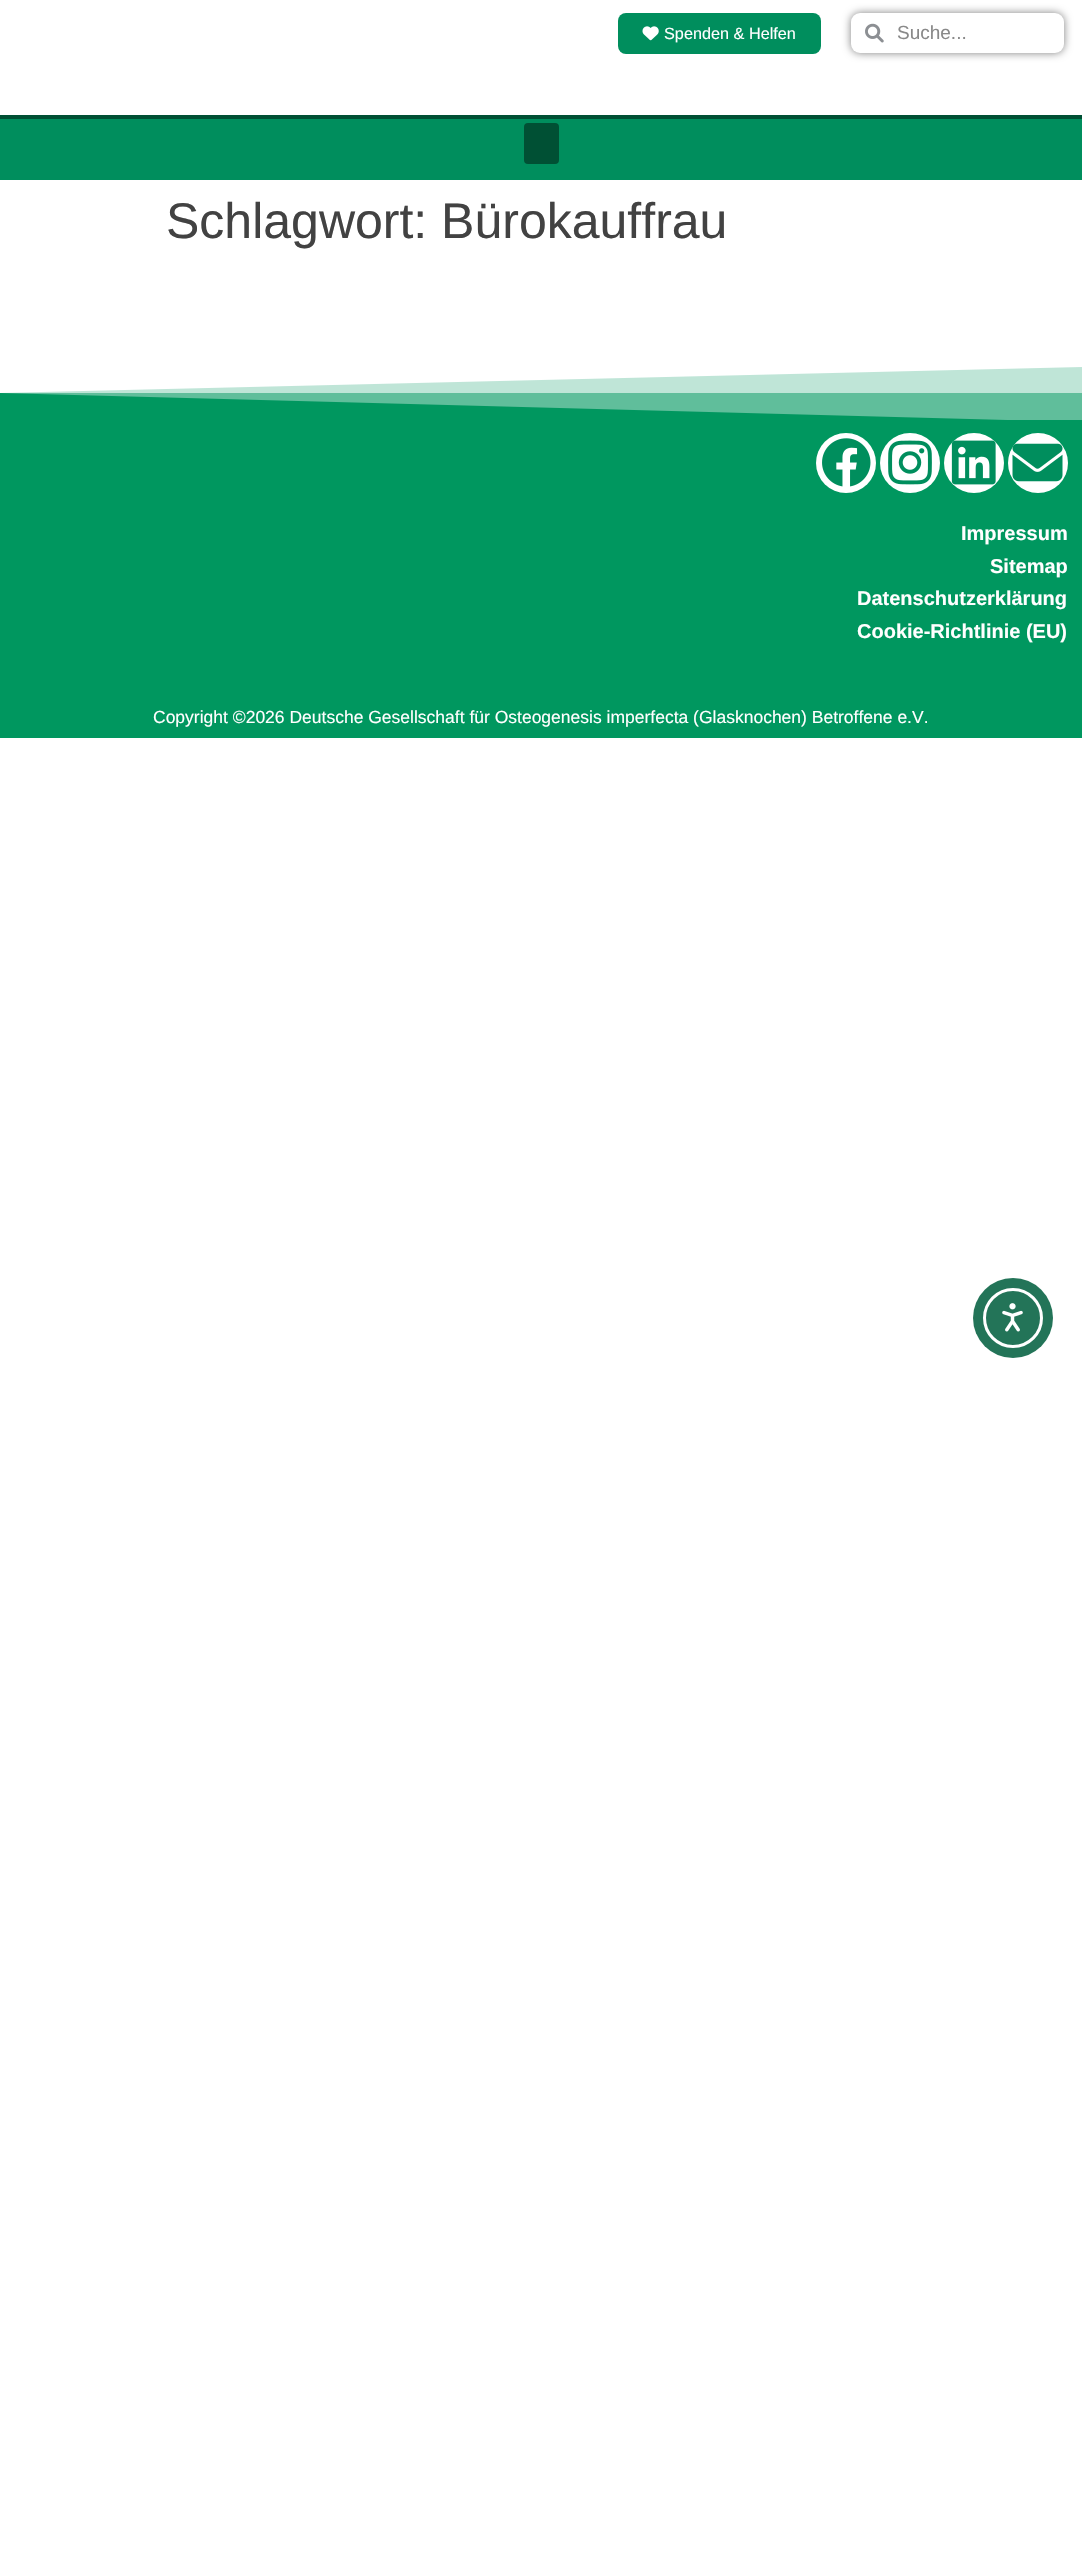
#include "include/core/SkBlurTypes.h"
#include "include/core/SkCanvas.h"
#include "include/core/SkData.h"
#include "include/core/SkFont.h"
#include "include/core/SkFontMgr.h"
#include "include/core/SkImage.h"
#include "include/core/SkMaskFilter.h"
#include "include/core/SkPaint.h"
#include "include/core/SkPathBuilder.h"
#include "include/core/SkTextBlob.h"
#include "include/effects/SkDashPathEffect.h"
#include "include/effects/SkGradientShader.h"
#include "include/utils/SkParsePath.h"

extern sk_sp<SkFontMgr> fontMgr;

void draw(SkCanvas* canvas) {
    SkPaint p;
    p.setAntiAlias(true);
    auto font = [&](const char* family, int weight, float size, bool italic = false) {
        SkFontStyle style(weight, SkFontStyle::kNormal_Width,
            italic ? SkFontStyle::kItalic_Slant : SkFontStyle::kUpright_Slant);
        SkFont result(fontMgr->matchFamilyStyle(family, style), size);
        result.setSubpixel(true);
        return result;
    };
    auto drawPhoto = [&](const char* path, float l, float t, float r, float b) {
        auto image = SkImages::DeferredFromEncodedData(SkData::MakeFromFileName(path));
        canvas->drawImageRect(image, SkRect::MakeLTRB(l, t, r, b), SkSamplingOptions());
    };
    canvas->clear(0xFFFFFFFF);
    p.setColor(0xFF80CBAF);
    canvas->drawRect(SkRect::MakeLTRB(1, 393, 1082, 420), p);
    p.setColor(0xFF008E5D);
    canvas->drawRoundRect(SkRect::MakeLTRB(618, 13, 821, 54), 8, 8, p);
    drawPhoto("media/1.png", 642, 26, 659, 41);
    auto font1 = font("Liberation Sans", 400, 16.25f);
    p.setColor(0xFFFFFFFF);
    canvas->drawString("Spenden & Helfen", 664, 39, font1, p);
    p.setColor(0x80000000);
    p.setMaskFilter(SkMaskFilter::MakeBlur(kNormal_SkBlurStyle, 4));
    canvas->drawRoundRect(SkRect::MakeLTRB(851, 13, 1064, 53), 9, 9, p);
    p.setMaskFilter(nullptr);
    p.setColor(0xFFFFFFFF);
    canvas->drawRoundRect(SkRect::MakeLTRB(851, 13, 1064, 53), 9, 9, p);
    drawPhoto("media/2.png", 865, 23, 884, 43);
    auto font2 = font("Liberation Sans", 400, 19);
    p.setColor(0xFF898989);
    canvas->drawString("Suche...", 897, 39, font2, p);
    p.setColor(0xFF008E5D);
    canvas->drawRect(SkRect::MakeLTRB(0, 119, 1082, 180), p);
    p.setColor(0xFF005034);
    canvas->drawRect(SkRect::MakeLTRB(0, 115, 1082, 119), p);
    canvas->drawRoundRect(SkRect::MakeLTRB(524, 123, 559, 164), 4, 4, p);
    auto font3 = font("Liberation Sans", 400, 50);
    p.setColor(0xFF424242);
    canvas->drawString("Schlagwort: Bürokauffrau", 166, 238, font3, p);
    p.setColor(0xFF00975F);
    canvas->drawPath(SkPathBuilder().moveTo(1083, 422).lineTo(-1, 422).lineTo(-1, 393).close().detach(), p);
    p.setColor(0x4000975F);
    canvas->drawPath(SkPathBuilder().moveTo(-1, 422).lineTo(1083, 422).lineTo(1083, 367).lineTo(-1, 393).close().detach(), p);
    p.setColor(0xFF00975F);
    canvas->drawRect(SkRect::MakeLTRB(0, 420, 1082, 738), p);
    p.setColor(0xFFFFFFFF);
    canvas->drawCircle(846, 463, 30, p);
    drawPhoto("media/3.png", 822, 438, 871, 487);
    canvas->drawCircle(910, 463, 30, p);
    drawPhoto("media/4.png", 888, 440, 932, 485);
    canvas->drawCircle(974, 463, 30, p);
    drawPhoto("media/5.png", 951, 440, 996, 485);
    canvas->drawCircle(1038, 463, 30, p);
    drawPhoto("media/6.png", 1012, 443, 1063, 482);
    auto font4 = font("Liberation Sans", 700, 20);
    {
        const struct { const char* s; float x, y; } items[] = {
            {"Impressum", 961, 540},
            {"Sitemap", 990, 573},
            {"Datenschutzerklärung", 857, 605},
            {"Cookie-Richtlinie (EU)", 857, 638},
        };
        for (auto [s, x, y] : items) {
            canvas->drawString(s, x, y, font4, p);
        }
    }
    auto font5 = font("Liberation Sans", 400, 17.5f);
    canvas->drawString("Copyright ©2026 Deutsche Gesellschaft für Osteogenesis imperfecta (Glasknochen) Betroffene e.V.", 153, 723, font5, p);
    p.setColor(0xFF237458);
    canvas->drawCircle(1013, 1318, 40, p);
    p.setStyle(SkPaint::kStroke_Style);
    p.setStrokeWidth(3);
    p.setColor(0xFFFFFFFF);
    canvas->drawCircle(1013, 1318, 28.5f, p);
    drawPhoto("media/7.png", 1002, 1303, 1023, 1332);
}
